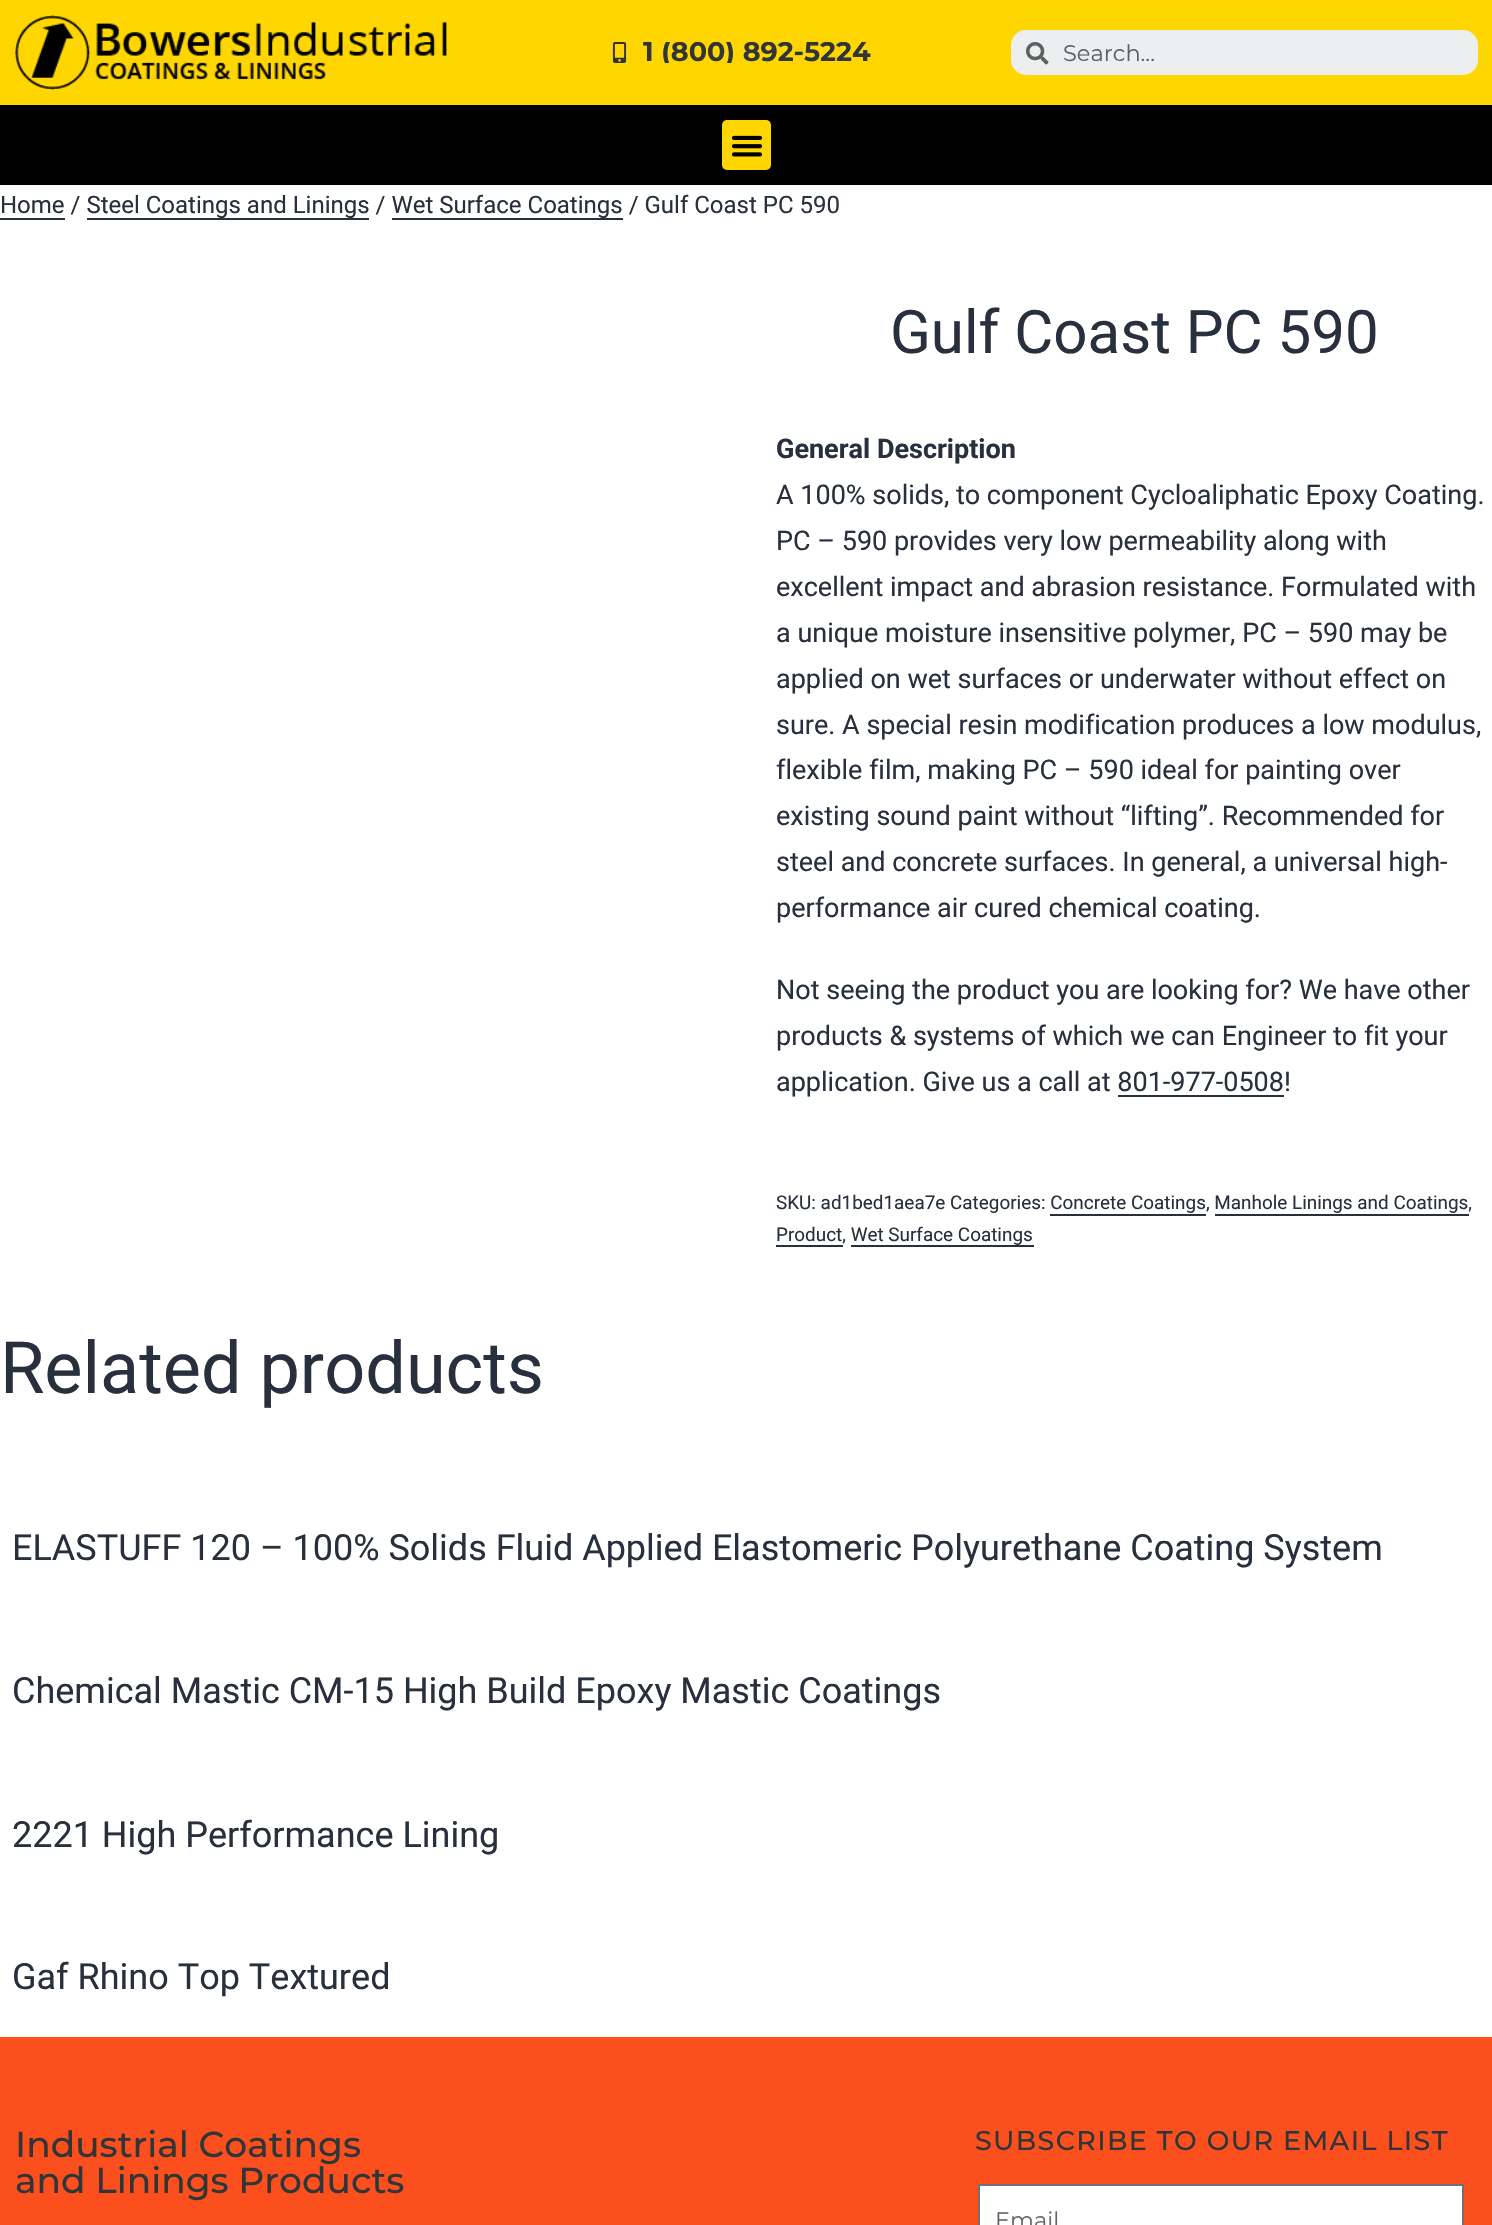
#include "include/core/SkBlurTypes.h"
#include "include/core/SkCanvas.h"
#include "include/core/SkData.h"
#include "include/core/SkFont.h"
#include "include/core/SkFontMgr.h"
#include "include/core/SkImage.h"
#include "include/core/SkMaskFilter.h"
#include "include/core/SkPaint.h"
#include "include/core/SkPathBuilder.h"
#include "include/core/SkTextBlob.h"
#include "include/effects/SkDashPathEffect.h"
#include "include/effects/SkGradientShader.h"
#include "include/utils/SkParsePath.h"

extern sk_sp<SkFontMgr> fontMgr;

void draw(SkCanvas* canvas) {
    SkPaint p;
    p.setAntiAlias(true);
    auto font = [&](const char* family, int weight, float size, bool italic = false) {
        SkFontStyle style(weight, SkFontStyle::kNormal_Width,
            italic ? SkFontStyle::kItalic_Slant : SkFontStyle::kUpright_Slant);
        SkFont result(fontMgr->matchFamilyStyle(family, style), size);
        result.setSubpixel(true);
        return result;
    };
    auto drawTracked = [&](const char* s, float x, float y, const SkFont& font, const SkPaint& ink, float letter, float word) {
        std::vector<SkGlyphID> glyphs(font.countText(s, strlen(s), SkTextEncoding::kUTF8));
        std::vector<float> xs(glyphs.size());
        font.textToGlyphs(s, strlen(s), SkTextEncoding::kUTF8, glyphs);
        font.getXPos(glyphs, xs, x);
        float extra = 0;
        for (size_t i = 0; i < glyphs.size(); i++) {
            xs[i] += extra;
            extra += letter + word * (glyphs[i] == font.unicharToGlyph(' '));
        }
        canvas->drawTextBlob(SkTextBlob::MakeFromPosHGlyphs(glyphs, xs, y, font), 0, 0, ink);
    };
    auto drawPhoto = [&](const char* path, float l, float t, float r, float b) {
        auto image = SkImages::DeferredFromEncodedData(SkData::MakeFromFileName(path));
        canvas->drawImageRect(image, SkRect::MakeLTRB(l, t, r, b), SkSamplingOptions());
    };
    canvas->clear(0xFFFFFFFF);
    p.setColor(0xFFFFD600);
    canvas->drawRect(SkRect::MakeLTRB(0, 0, 1492, 105), p);
    drawPhoto("media/1.png", 15, 15, 447, 90);
    drawPhoto("media/2.png", 612, 42, 627, 63);
    canvas->save();
    canvas->clipRect(SkRect::MakeLTRB(506, 42, 974, 63));
    auto font1 = font("Montserrat", 700, 27);
    p.setColor(0xFF313537);
    canvas->drawString("1 (800) 892-5224", 643, 61, font1, p);
    canvas->restore();
    p.setColor(0xFFECEEEF);
    canvas->drawRoundRect(SkRect::MakeLTRB(1011, 30, 1478, 75), 15, 15, p);
    drawPhoto("media/3.png", 1026, 42, 1049, 65);
    auto font2 = font("Montserrat", 400, 22.5f);
    p.setColor(0xFF5E5F60);
    canvas->drawString("Search...", 1063, 61, font2, p);
    p.setColor(0xFF000000);
    canvas->drawRect(SkRect::MakeLTRB(0, 105, 1492, 185), p);
    p.setColor(0xFFFFD600);
    canvas->drawRoundRect(SkRect::MakeLTRB(722, 120, 771, 170), 5, 5, p);
    drawPhoto("media/4.png", 731, 135, 763, 157);
    auto font3 = font("Roboto", 400, 24);
    p.setColor(0xFF28303D);
    canvas->drawString("Home / Steel Coatings and Linings / Wet Surface Coatings / Gulf Coast PC 590", 0, 213, font3, p);
    {
        const struct { float l, t, r, b; SkColor color; } items[] = {
            {0, 218, 65, 220, 0xFF28303D},
            {87, 218, 369, 220, 0xFF28303D},
            {392, 218, 623, 220, 0xFF28303D},
        };
        for (auto [l, t, r, b, color] : items) {
            p.setColor(color);
            canvas->drawRect(SkRect::MakeLTRB(l, t, r, b), p);
        }
    }
    auto font4 = font("Roboto", 400, 60);
    canvas->drawString("Gulf Coast PC 590", 890, 353, font4, p);
    auto font5 = font("Roboto", 700, 27);
    canvas->drawString("General Description", 776, 458, font5, p);
    auto font6 = font("Roboto", 400, 27);
    {
        const struct { const char* s; float x, y; } items[] = {
            {"A 100% solids, to component Cycloaliphatic Epoxy Coating.", 776, 504},
            {"PC – 590 provides very low permeability along with", 776, 550},
            {"excellent impact and abrasion resistance. Formulated with", 776, 596},
            {"a unique moisture insensitive polymer, PC – 590 may be", 776, 642},
            {"applied on wet surfaces or underwater without effect on", 776, 688},
            {"sure. A special resin modification produces a low modulus,", 776, 734},
            {"flexible film, making PC – 590 ideal for painting over", 776, 779},
            {"existing sound paint without “lifting”. Recommended for", 776, 825},
            {"steel and concrete surfaces. In general, a universal high-", 776, 871},
            {"performance air cured chemical coating.", 776, 917},
            {"Not seeing the product you are looking for? We have other", 776, 999},
            {"products & systems of which we can Engineer to fit your", 776, 1045},
            {"application. Give us a call at 801-977-0508!", 776, 1091},
        };
        for (auto [s, x, y] : items) {
            canvas->drawString(s, x, y, font6, p);
        }
    }
    canvas->drawRect(SkRect::MakeLTRB(1118, 1095, 1284, 1097), p);
    auto font7 = font("Roboto", 400, 18.9f);
    canvas->drawString("SKU: ad1bed1aea7e Categories: Concrete Coatings, Manhole Linings and Coatings,", 776, 1209, font7, p);
    canvas->drawString("Product, Wet Surface Coatings", 776, 1241, font7, p);
    {
        const struct { float l, t, r, b; SkColor color; } items[] = {
            {1050, 1214, 1206, 1216, 0xFF28303D},
            {1215, 1214, 1469, 1216, 0xFF28303D},
            {776, 1245, 843, 1247, 0xFF28303D},
            {851, 1245, 1034, 1247, 0xFF28303D},
        };
        for (auto [l, t, r, b, color] : items) {
            p.setColor(color);
            canvas->drawRect(SkRect::MakeLTRB(l, t, r, b), p);
        }
    }
    auto font8 = font("Roboto", 400, 72);
    canvas->drawString("Related products", 0, 1393, font8, p);
    auto font9 = font("Roboto", 400, 36);
    {
        const struct { const char* s; float x, y; } items[] = {
            {"ELASTUFF 120 – 100% Solids Fluid Applied Elastomeric Polyurethane Coating System", 12, 1560},
            {"Chemical Mastic CM-15 High Build Epoxy Mastic Coatings", 12, 1703},
            {"2221 High Performance Lining", 12, 1847},
            {"Gaf Rhino Top Textured", 12, 1989},
        };
        for (auto [s, x, y] : items) {
            canvas->drawString(s, x, y, font9, p);
        }
    }
    p.setColor(0xFFFB4F1E);
    canvas->drawRect(SkRect::MakeLTRB(0, 2037, 1492, 2225), p);
    auto font10 = font("Montserrat", 500, 36);
    p.setColor(0xFF313537);
    canvas->drawString("Industrial Coatings", 15, 2157, font10, p);
    canvas->drawString("and Linings Products", 15, 2193, font10, p);
    auto font11 = font("Montserrat", 500, 27);
    drawTracked("SUBSCRIBE TO OUR EMAIL LIST", 975, 2150, font11, p, 1.35f, 0);
    p.setColor(0xFFFFFFFF);
    canvas->drawRect(SkRect::MakeLTRB(979, 2185, 1463, 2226), p);
    p.setStyle(SkPaint::kStroke_Style);
    p.setStrokeWidth(2);
    p.setColor(0xFF69727D);
    canvas->drawRect(SkRect::MakeLTRB(979, 2185, 1463, 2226), p);
    p.setStyle(SkPaint::kFill_Style);
    p.setColor(0xFF666666);
    canvas->drawString("Email", 995, 2228, font2, p);
}
